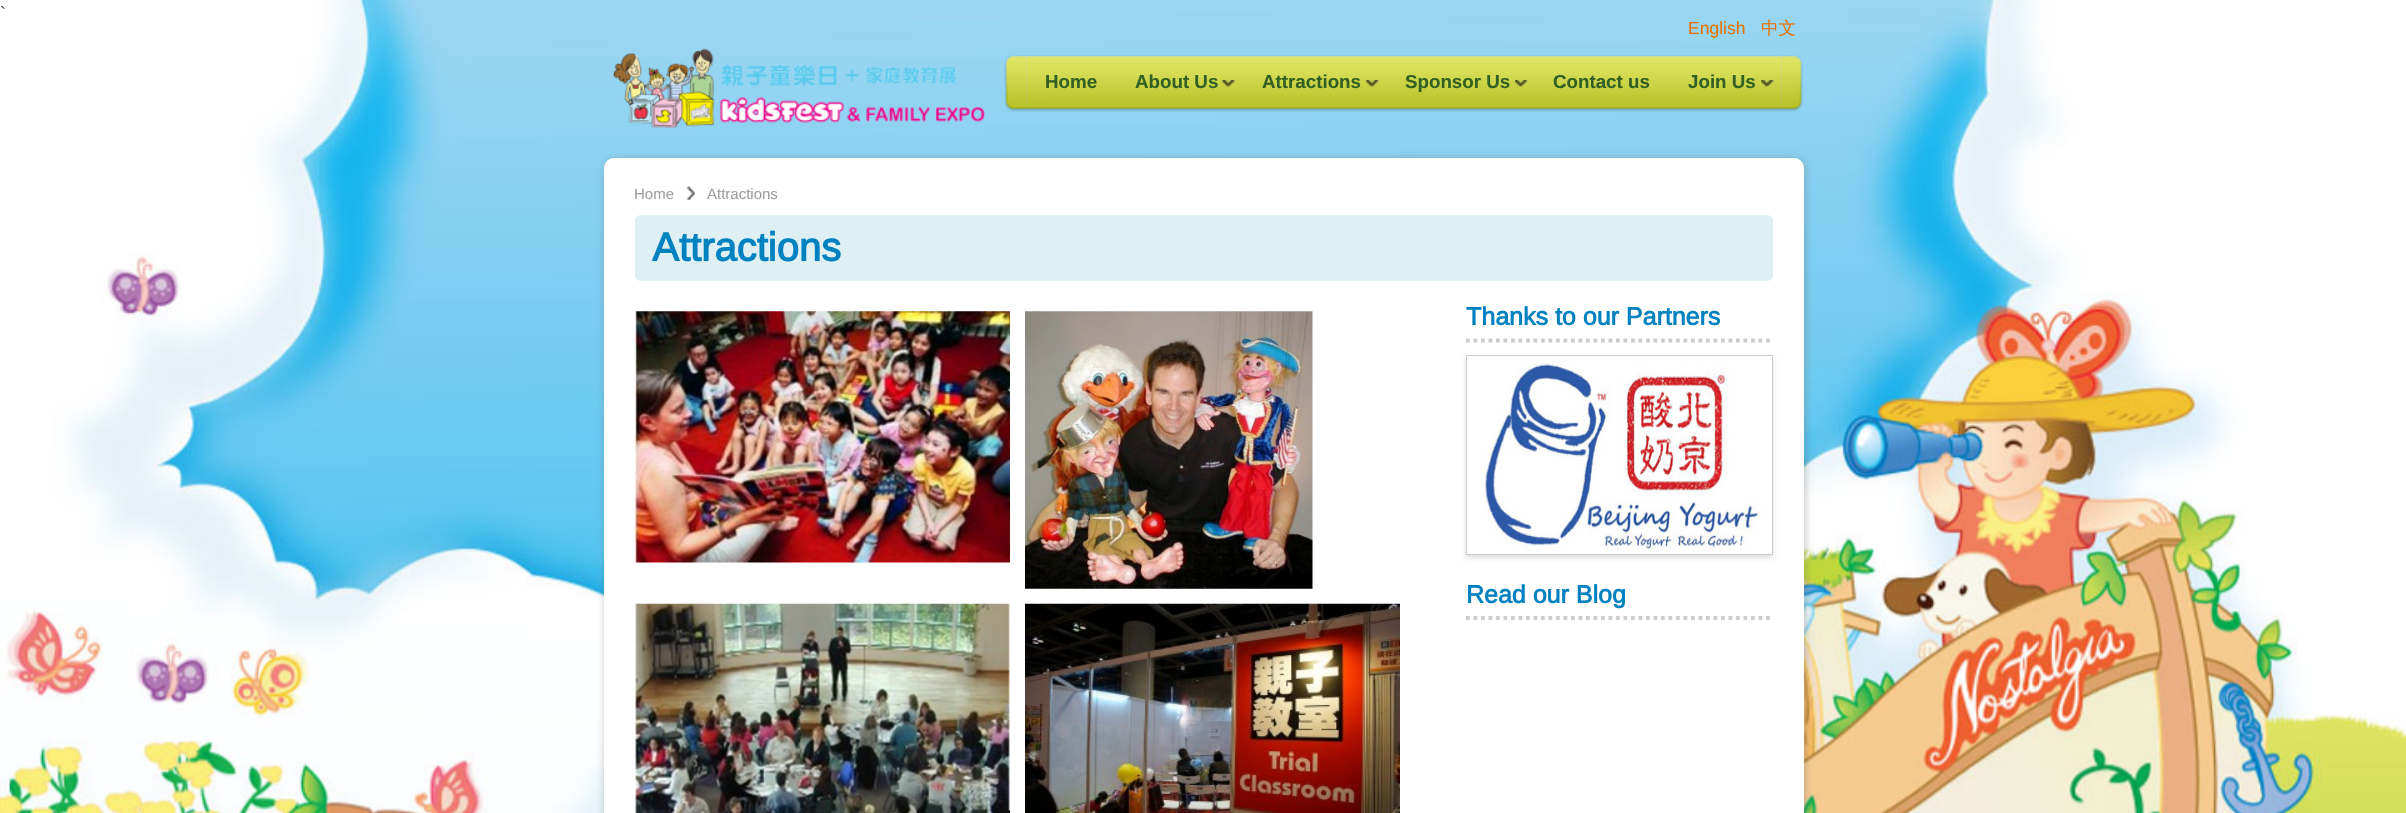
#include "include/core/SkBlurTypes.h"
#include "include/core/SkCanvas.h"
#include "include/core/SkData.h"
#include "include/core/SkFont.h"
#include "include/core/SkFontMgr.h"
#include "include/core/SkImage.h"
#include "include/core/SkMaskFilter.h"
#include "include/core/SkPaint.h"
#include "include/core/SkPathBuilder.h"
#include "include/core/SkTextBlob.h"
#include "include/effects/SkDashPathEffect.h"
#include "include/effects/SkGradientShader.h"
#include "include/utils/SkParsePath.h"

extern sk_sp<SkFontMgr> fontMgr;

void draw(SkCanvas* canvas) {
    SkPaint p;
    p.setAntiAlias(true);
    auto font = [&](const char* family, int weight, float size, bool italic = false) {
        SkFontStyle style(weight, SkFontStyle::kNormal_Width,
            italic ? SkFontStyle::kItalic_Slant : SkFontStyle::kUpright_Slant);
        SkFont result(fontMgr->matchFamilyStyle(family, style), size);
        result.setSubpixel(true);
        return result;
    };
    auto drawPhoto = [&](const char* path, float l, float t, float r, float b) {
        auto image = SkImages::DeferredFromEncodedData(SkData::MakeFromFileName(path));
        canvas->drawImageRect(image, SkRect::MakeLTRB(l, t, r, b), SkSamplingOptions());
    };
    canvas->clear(0xFFFFFFFF);
    drawPhoto("media/1.png", 0, 0, 2406, 813);
    auto font1 = font("Liberation Sans", 400, 17.5f);
    p.setColor(0xFF444444);
    canvas->drawString("`", 0, 19, font1, p);
    p.setColor(0xFFE57200);
    canvas->drawString("English", 1688, 34, font1, p);
    auto font2 = font("WenQuanYi Zen Hei", 500, 17.5f);
    canvas->drawString("中文", 1761, 34, font2, p);
    drawPhoto("media/2.png", 612, 48, 985, 128);
    drawPhoto("media/3.png", 1004, 55, 1027, 112);
    drawPhoto("media/4.png", 1026, 55, 1782, 112);
    auto font3 = font("Liberation Sans", 700, 18.75f);
    p.setColor(0xFF325F23);
    canvas->drawString("Home", 1045, 88, font3, p);
    canvas->drawString("About Us", 1135, 88, font3, p);
    drawPhoto("media/5.png", 1222, 80, 1235, 87);
    canvas->drawString("Attractions", 1262, 88, font3, p);
    drawPhoto("media/6.png", 1366, 80, 1379, 87);
    canvas->drawString("Sponsor Us", 1405, 88, font3, p);
    drawPhoto("media/7.png", 1515, 80, 1528, 87);
    canvas->drawString("Contact us", 1553, 88, font3, p);
    canvas->drawString("Join Us", 1688, 88, font3, p);
    drawPhoto("media/6.png", 1761, 80, 1774, 87);
    drawPhoto("media/8.png", 1781, 55, 1803, 112);
    p.setColor(0x66666666);
    p.setMaskFilter(SkMaskFilter::MakeBlur(kNormal_SkBlurStyle, 4));
    canvas->drawRoundRect(SkRect::MakeLTRB(605, 159, 1805, 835), 10, 10, p);
    p.setMaskFilter(nullptr);
    p.setColor(0xFFFFFFFF);
    canvas->drawPath(SkPathBuilder().moveTo(614, 158).lineTo(1794, 158).cubicTo(1799.5f, 158, 1804, 162.5f, 1804, 168).lineTo(1804, 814).lineTo(604, 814).lineTo(604, 168).cubicTo(604, 162.5f, 608.5f, 158, 614, 158).close().detach(), p);
    auto font4 = font("Liberation Sans", 400, 15);
    p.setColor(0xFF9F9F9F);
    canvas->drawString("Home", 634, 199, font4, p);
    drawPhoto("media/9.png", 686, 186, 695, 200);
    canvas->drawString("Attractions", 707, 199, font4, p);
    p.setColor(0xFFDFF0F5);
    canvas->drawRoundRect(SkRect::MakeLTRB(635, 215, 1773, 281), 6, 6, p);
    auto font5 = font("Arimo", 700, 40);
    p.setColor(0xFF0082C0);
    canvas->drawString("Attractions", 652, 261, font5, p);
    drawPhoto("media/10.png", 635, 311, 1010, 563);
    drawPhoto("media/11.png", 1025, 311, 1313, 589);
    drawPhoto("media/12.png", 635, 603, 1010, 813);
    drawPhoto("media/13.png", 1025, 603, 1400, 813);
    p.setStyle(SkPaint::kStroke_Style);
    p.setStrokeWidth(3.8f);
    p.setColor(0xFFCCCCCC);
    p.setPathEffect(SkDashPathEffect::Make({{3.75f, 3.75f}}, 0));
    canvas->drawPath(SkPathBuilder().moveTo(1466, 340.5f).lineTo(1772.5f, 340.5f).detach(), p);
    p.setPathEffect(nullptr);
    auto font6 = font("Arimo", 700, 25);
    p.setStyle(SkPaint::kFill_Style);
    p.setColor(0xFF0082C0);
    canvas->drawString("Thanks to our Partners", 1466, 325, font6, p);
    canvas->save();
    canvas->clipPath(SkPathBuilder(SkPathFillType::kEvenOdd).moveTo(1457, 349).lineTo(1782, 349).lineTo(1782, 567).lineTo(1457, 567).close().moveTo(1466, 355).lineTo(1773, 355).lineTo(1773, 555).lineTo(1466, 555).close().detach(), true);
    p.setColor(0xFFDDDDDD);
    p.setMaskFilter(SkMaskFilter::MakeBlur(kNormal_SkBlurStyle, 2.5f));
    canvas->drawRect(SkRect::MakeLTRB(1466, 358, 1773, 558), p);
    p.setMaskFilter(nullptr);
    canvas->restore();
    p.setStyle(SkPaint::kStroke_Style);
    p.setStrokeWidth(1);
    p.setColor(0xFFCCCCCC);
    canvas->drawRect(SkRect::MakeLTRB(1466.5f, 355.5f, 1772.5f, 554.5f), p);
    drawPhoto("media/14.png", 1481, 363, 1762, 551);
    p.setStrokeWidth(3.8f);
    p.setPathEffect(SkDashPathEffect::Make({{3.75f, 3.75f}}, 0));
    canvas->drawPath(SkPathBuilder().moveTo(1466, 618).lineTo(1772.5f, 618).detach(), p);
    p.setPathEffect(nullptr);
    p.setStyle(SkPaint::kFill_Style);
    p.setColor(0xFF0082C0);
    canvas->drawString("Read our Blog", 1466, 603, font6, p);
}
